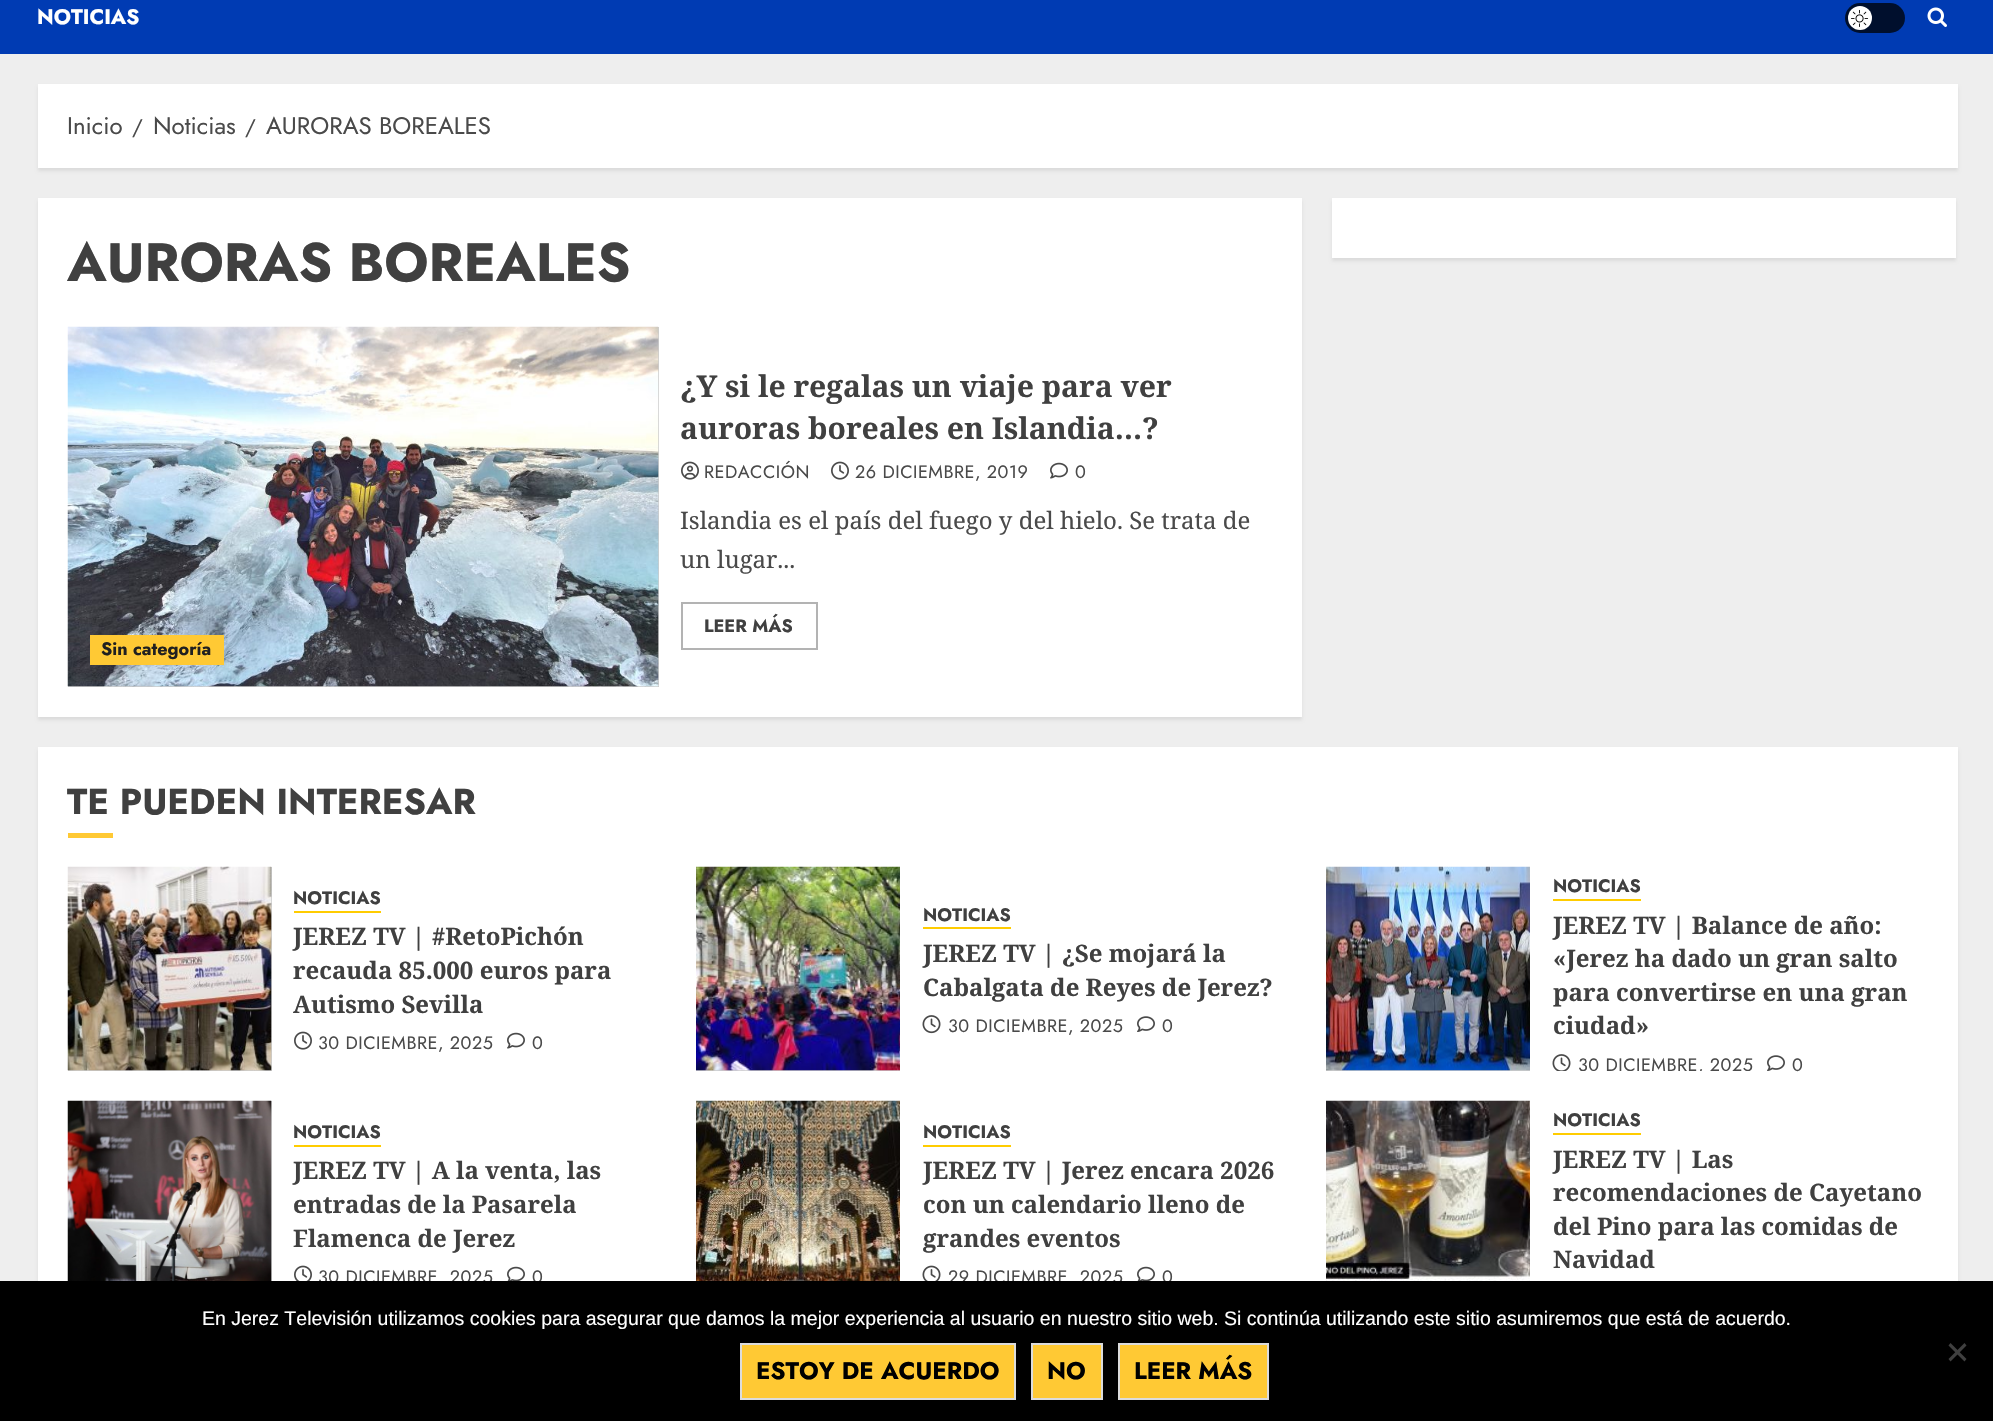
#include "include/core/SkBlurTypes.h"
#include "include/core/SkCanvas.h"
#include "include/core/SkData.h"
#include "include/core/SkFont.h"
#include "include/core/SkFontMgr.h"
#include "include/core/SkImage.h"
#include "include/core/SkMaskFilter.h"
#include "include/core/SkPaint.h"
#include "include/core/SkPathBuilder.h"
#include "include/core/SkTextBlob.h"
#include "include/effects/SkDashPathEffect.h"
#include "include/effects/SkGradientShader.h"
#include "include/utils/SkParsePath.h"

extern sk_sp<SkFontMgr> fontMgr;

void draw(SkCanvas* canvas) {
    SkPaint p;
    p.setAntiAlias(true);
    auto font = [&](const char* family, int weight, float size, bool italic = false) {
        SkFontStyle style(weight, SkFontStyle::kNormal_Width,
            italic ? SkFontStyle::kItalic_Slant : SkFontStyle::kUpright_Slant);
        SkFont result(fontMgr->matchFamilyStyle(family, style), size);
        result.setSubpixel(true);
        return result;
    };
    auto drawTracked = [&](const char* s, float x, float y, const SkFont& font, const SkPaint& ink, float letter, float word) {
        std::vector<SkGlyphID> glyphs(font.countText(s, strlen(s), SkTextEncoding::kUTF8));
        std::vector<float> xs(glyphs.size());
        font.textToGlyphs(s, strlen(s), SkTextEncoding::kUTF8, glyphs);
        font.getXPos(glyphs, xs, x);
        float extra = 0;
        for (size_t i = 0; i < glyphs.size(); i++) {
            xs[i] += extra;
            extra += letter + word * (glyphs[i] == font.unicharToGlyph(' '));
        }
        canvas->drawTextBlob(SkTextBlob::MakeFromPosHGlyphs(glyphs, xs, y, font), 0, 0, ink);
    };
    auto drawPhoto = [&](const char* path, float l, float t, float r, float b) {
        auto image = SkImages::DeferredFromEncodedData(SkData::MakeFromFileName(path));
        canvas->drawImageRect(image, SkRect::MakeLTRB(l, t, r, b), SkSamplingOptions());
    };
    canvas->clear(0xFFEEEEEE);
    p.setColor(0xFF003BB3);
    canvas->drawRect(SkRect::MakeLTRB(0, 0, 1993, 54), p);
    auto font1 = font("Jost", 700, 21);
    p.setColor(0xFFFFFFFF);
    canvas->drawString("NOTICIAS", 37, 24, font1, p);
    p.setColor(0xFF000F2D);
    canvas->drawRoundRect(SkRect::MakeLTRB(1845, 3, 1905, 33), 15, 15, p);
    p.setColor(0xFFFFFFFF);
    canvas->drawCircle(1860, 18, 12, p);
    drawPhoto("media/1.png", 1851, 9, 1869, 27);
    drawPhoto("media/2.png", 1927, 7, 1947, 27);
    p.setColor(0x14000000);
    p.setMaskFilter(SkMaskFilter::MakeBlur(kNormal_SkBlurStyle, 1.5f));
    canvas->drawRect(SkRect::MakeLTRB(38, 87, 1958, 171), p);
    p.setMaskFilter(nullptr);
    p.setColor(0xFFFFFFFF);
    canvas->drawRect(SkRect::MakeLTRB(38, 84, 1958, 168), p);
    auto font2 = font("Jost", 400, 24);
    p.setColor(0xFF4A4A4A);
    canvas->drawString("Inicio", 67, 134, font2, p);
    auto font3 = font("Jost", 400, 21);
    canvas->drawString("/", 132, 134, font3, p);
    canvas->drawString("Noticias", 153, 134, font2, p);
    canvas->drawString("/", 245, 134, font3, p);
    canvas->drawString("AURORAS BOREALES", 266, 134, font2, p);
    p.setColor(0x14000000);
    p.setMaskFilter(SkMaskFilter::MakeBlur(kNormal_SkBlurStyle, 1.5f));
    canvas->drawRect(SkRect::MakeLTRB(1332, 201, 1956, 261), p);
    p.setMaskFilter(nullptr);
    p.setColor(0xFFFFFFFF);
    canvas->drawRect(SkRect::MakeLTRB(1332, 198, 1956, 258), p);
    p.setColor(0x14000000);
    p.setMaskFilter(SkMaskFilter::MakeBlur(kNormal_SkBlurStyle, 1.5f));
    canvas->drawRect(SkRect::MakeLTRB(38, 201, 1302, 720), p);
    p.setMaskFilter(nullptr);
    p.setColor(0xFFFFFFFF);
    canvas->drawRect(SkRect::MakeLTRB(38, 198, 1302, 717), p);
    auto font4 = font("Jost", 700, 54);
    p.setColor(0xFF404040);
    canvas->drawString("AURORAS BOREALES", 67, 281, font4, p);
    auto font5 = font("Noto Serif", 700, 30);
    canvas->drawString("¿Y si le regalas un viaje para ver", 680, 397, font5, p);
    canvas->drawString("auroras boreales en Islandia…?", 680, 439, font5, p);
    drawPhoto("media/3.png", 681, 461, 699, 480);
    auto font6 = font("Jost", 400, 18);
    p.setColor(0xFF4A4A4A);
    drawTracked("REDACCIÓN", 704, 478, font6, p, 0.5f, 0);
    drawPhoto("media/4.png", 831, 461, 849, 480);
    drawTracked("26 DICIEMBRE, 2019", 855, 478, font6, p, 0.5f, 0);
    drawPhoto("media/5.png", 1050, 462, 1068, 479);
    drawTracked("0", 1075, 478, font6, p, 0.5f, 0);
    auto font7 = font("Noto Serif", 400, 24);
    canvas->drawString("Islandia es el país del fuego y del hielo. Se trata de", 680, 529, font7, p);
    canvas->drawString("un lugar...", 680, 568, font7, p);
    p.setStyle(SkPaint::kStroke_Style);
    p.setStrokeWidth(2);
    p.setColor(0xFFB3B3B3);
    canvas->drawRect(SkRect::MakeLTRB(682, 603, 817, 649), p);
    auto font8 = font("Jost", 700, 18);
    p.setStyle(SkPaint::kFill_Style);
    p.setColor(0xFF404040);
    canvas->drawString("LEER MÁS", 704, 632, font8, p);
    p.setColor(0xFFCCCCCC);
    canvas->drawRect(SkRect::MakeLTRB(68, 327, 659, 687), p);
    drawPhoto("media/6.png", 67, 326, 659, 687);
    p.setColor(0xFFFFC934);
    canvas->drawRect(SkRect::MakeLTRB(90, 635, 224, 665), p);
    p.setColor(0xFF202020);
    canvas->drawString("Sin categoría", 101, 655, font8, p);
    p.setColor(0x14000000);
    p.setMaskFilter(SkMaskFilter::MakeBlur(kNormal_SkBlurStyle, 1.5f));
    canvas->drawRect(SkRect::MakeLTRB(38, 750, 1958, 1338), p);
    p.setMaskFilter(nullptr);
    p.setColor(0xFFFFFFFF);
    canvas->drawRect(SkRect::MakeLTRB(38, 747, 1958, 1281), p);
    auto font9 = font("Jost", 700, 36);
    p.setColor(0xFF404040);
    canvas->drawString("TE PUEDEN INTERESAR", 67, 814, font9, p);
    p.setColor(0xFFFFC934);
    canvas->drawRect(SkRect::MakeLTRB(68, 833, 113, 838), p);
    p.setColor(0xFFCCCCCC);
    canvas->drawRect(SkRect::MakeLTRB(68, 867, 272, 1071), p);
    drawPhoto("media/7.png", 67, 866, 272, 1071);
    p.setColor(0xFFFFCC00);
    canvas->drawRect(SkRect::MakeLTRB(294, 911, 381, 913), p);
    p.setColor(0xFF404040);
    canvas->drawString("NOTICIAS", 293, 904, font8, p);
    auto font10 = font("Noto Serif", 700, 24);
    {
        const struct { const char* s; float x, y; } items[] = {
            {"JEREZ TV | #RetoPichón", 293, 945},
            {"recauda 85.000 euros para", 293, 979},
            {"Autismo Sevilla", 293, 1013},
        };
        for (auto [s, x, y] : items) {
            canvas->drawString(s, x, y, font10, p);
        }
    }
    drawPhoto("media/4.png", 294, 1031, 312, 1050);
    p.setColor(0xFF4A4A4A);
    drawTracked("30 DICIEMBRE, 2025", 318, 1049, font6, p, 0.5f, 0);
    drawPhoto("media/5.png", 507, 1032, 525, 1049);
    drawTracked("0", 532, 1049, font6, p, 0.5f, 0);
    p.setColor(0xFFCCCCCC);
    canvas->drawRect(SkRect::MakeLTRB(696, 1070, 900, 1071), p);
    drawPhoto("media/8.png", 696, 866, 900, 1071);
    p.setColor(0xFFFFCC00);
    canvas->drawRect(SkRect::MakeLTRB(923, 927, 1011, 929), p);
    p.setColor(0xFF404040);
    canvas->drawString("NOTICIAS", 923, 921, font8, p);
    canvas->drawString("JEREZ TV | ¿Se mojará la", 923, 962, font10, p);
    canvas->drawString("Cabalgata de Reyes de Jerez?", 923, 996, font10, p);
    drawPhoto("media/9.png", 922, 1015, 941, 1034);
    p.setColor(0xFF4A4A4A);
    drawTracked("30 DICIEMBRE, 2025", 948, 1032, font6, p, 0.5f, 0);
    drawPhoto("media/10.png", 1137, 1016, 1155, 1032);
    drawTracked("0", 1162, 1032, font6, p, 0.5f, 0);
    p.setColor(0xFFCCCCCC);
    canvas->drawRect(SkRect::MakeLTRB(1326, 1070, 1530, 1071), p);
    drawPhoto("media/11.png", 1326, 866, 1530, 1071);
    p.setColor(0xFFFFCC00);
    canvas->drawRect(SkRect::MakeLTRB(1553, 899, 1641, 901), p);
    p.setColor(0xFF404040);
    canvas->drawString("NOTICIAS", 1553, 892, font8, p);
    {
        const struct { const char* s; float x, y; } items[] = {
            {"JEREZ TV | Balance de año:", 1553, 934},
            {"«Jerez ha dado un gran salto", 1553, 967},
            {"para convertirse en una gran", 1553, 1001},
            {"ciudad»", 1553, 1034},
        };
        for (auto [s, x, y] : items) {
            canvas->drawString(s, x, y, font10, p);
        }
    }
    drawPhoto("media/12.png", 1552, 1054, 1571, 1071);
    canvas->save();
    canvas->clipRect(SkRect::MakeLTRB(1530, 867, 1926, 1071));
    p.setColor(0xFF4A4A4A);
    drawTracked("30 DICIEMBRE, 2025", 1578, 1071, font6, p, 0.5f, 0);
    canvas->restore();
    drawPhoto("media/10.png", 1767, 1055, 1785, 1071);
    drawTracked("0", 1792, 1071, font6, p, 0.5f, 0);
    p.setColor(0xFFCCCCCC);
    canvas->drawRect(SkRect::MakeLTRB(271, 1101, 272, 1281), p);
    drawPhoto("media/13.png", 67, 1100, 272, 1281);
    p.setColor(0xFFFFCC00);
    canvas->drawRect(SkRect::MakeLTRB(294, 1145, 381, 1147), p);
    p.setColor(0xFF404040);
    canvas->drawString("NOTICIAS", 293, 1138, font8, p);
    {
        const struct { const char* s; float x, y; } items[] = {
            {"JEREZ TV | A la venta, las", 293, 1179},
            {"entradas de la Pasarela", 293, 1213},
            {"Flamenca de Jerez", 293, 1247},
        };
        for (auto [s, x, y] : items) {
            canvas->drawString(s, x, y, font10, p);
        }
    }
    drawPhoto("media/14.png", 294, 1265, 312, 1281);
    p.setColor(0xFF4A4A4A);
    drawTracked("30 DICIEMBRE, 2025", 318, 1283, font6, p, 0.5f, 0);
    drawPhoto("media/15.png", 507, 1266, 525, 1281);
    drawTracked("0", 532, 1283, font6, p, 0.5f, 0);
    drawPhoto("media/16.png", 696, 1100, 900, 1281);
    p.setColor(0xFFFFCC00);
    canvas->drawRect(SkRect::MakeLTRB(923, 1145, 1011, 1147), p);
    p.setColor(0xFF404040);
    canvas->drawString("NOTICIAS", 923, 1138, font8, p);
    {
        const struct { const char* s; float x, y; } items[] = {
            {"JEREZ TV | Jerez encara 2026", 923, 1179},
            {"con un calendario lleno de", 923, 1213},
            {"grandes eventos", 923, 1247},
        };
        for (auto [s, x, y] : items) {
            canvas->drawString(s, x, y, font10, p);
        }
    }
    drawPhoto("media/17.png", 922, 1265, 941, 1281);
    p.setColor(0xFF4A4A4A);
    drawTracked("29 DICIEMBRE, 2025", 948, 1283, font6, p, 0.5f, 0);
    drawPhoto("media/15.png", 1137, 1266, 1155, 1281);
    drawTracked("0", 1162, 1283, font6, p, 0.5f, 0);
    drawPhoto("media/18.png", 1326, 1100, 1530, 1281);
    p.setColor(0xFFFFCC00);
    canvas->drawRect(SkRect::MakeLTRB(1553, 1133, 1641, 1135), p);
    p.setColor(0xFF404040);
    canvas->drawString("NOTICIAS", 1553, 1126, font8, p);
    {
        const struct { const char* s; float x, y; } items[] = {
            {"JEREZ TV | Las", 1553, 1168},
            {"recomendaciones de Cayetano", 1553, 1201},
            {"del Pino para las comidas de", 1553, 1235},
            {"Navidad", 1553, 1268},
        };
        for (auto [s, x, y] : items) {
            canvas->drawString(s, x, y, font10, p);
        }
    }
    p.setColor(0xFF000000);
    canvas->drawRect(SkRect::MakeLTRB(0, 1281, 1993, 1421), p);
    auto font11 = font("Liberation Sans", 400, 19.5f);
    p.setColor(0xFFFFFFFF);
    canvas->drawString("En Jerez Televisión utilizamos cookies para asegurar que damos la mejor experiencia al usuario en nuestro sitio web. Si continúa utilizando este sitio asumiremos que está de acuerdo.", 202, 1325, font11, p);
    p.setColor(0xFFFFC934);
    canvas->drawRect(SkRect::MakeLTRB(741, 1344, 1015, 1399), p);
    p.setStyle(SkPaint::kStroke_Style);
    p.setColor(0xFFDCDCDC);
    canvas->drawRect(SkRect::MakeLTRB(741, 1344, 1015, 1399), p);
    auto font12 = font("Jost", 700, 24);
    p.setStyle(SkPaint::kFill_Style);
    p.setColor(0xFF000000);
    canvas->drawString("ESTOY DE ACUERDO", 756, 1379, font12, p);
    p.setColor(0xFFFFC934);
    canvas->drawRect(SkRect::MakeLTRB(1032, 1344, 1102, 1399), p);
    p.setStyle(SkPaint::kStroke_Style);
    p.setColor(0xFFDCDCDC);
    canvas->drawRect(SkRect::MakeLTRB(1032, 1344, 1102, 1399), p);
    p.setStyle(SkPaint::kFill_Style);
    p.setColor(0xFF000000);
    canvas->drawString("NO", 1047, 1379, font12, p);
    p.setColor(0xFFFFC934);
    canvas->drawRect(SkRect::MakeLTRB(1119, 1344, 1268, 1399), p);
    p.setStyle(SkPaint::kStroke_Style);
    p.setColor(0xFFDCDCDC);
    canvas->drawRect(SkRect::MakeLTRB(1119, 1344, 1268, 1399), p);
    p.setStyle(SkPaint::kFill_Style);
    p.setColor(0xFF000000);
    canvas->drawString("LEER MÁS", 1134, 1379, font12, p);
    p.setColor(0xFF404040);
    canvas->drawPath(SkPathBuilder().moveTo(1964.5f, 1343).lineTo(1966.5f, 1345.5f).lineTo(1950.5f, 1361.5f).lineTo(1948.5f, 1359).close().detach(), p);
    canvas->drawPath(SkPathBuilder().moveTo(1948.5f, 1345.5f).lineTo(1950.5f, 1343).lineTo(1966.5f, 1359).lineTo(1964.5f, 1361.5f).close().detach(), p);
}
